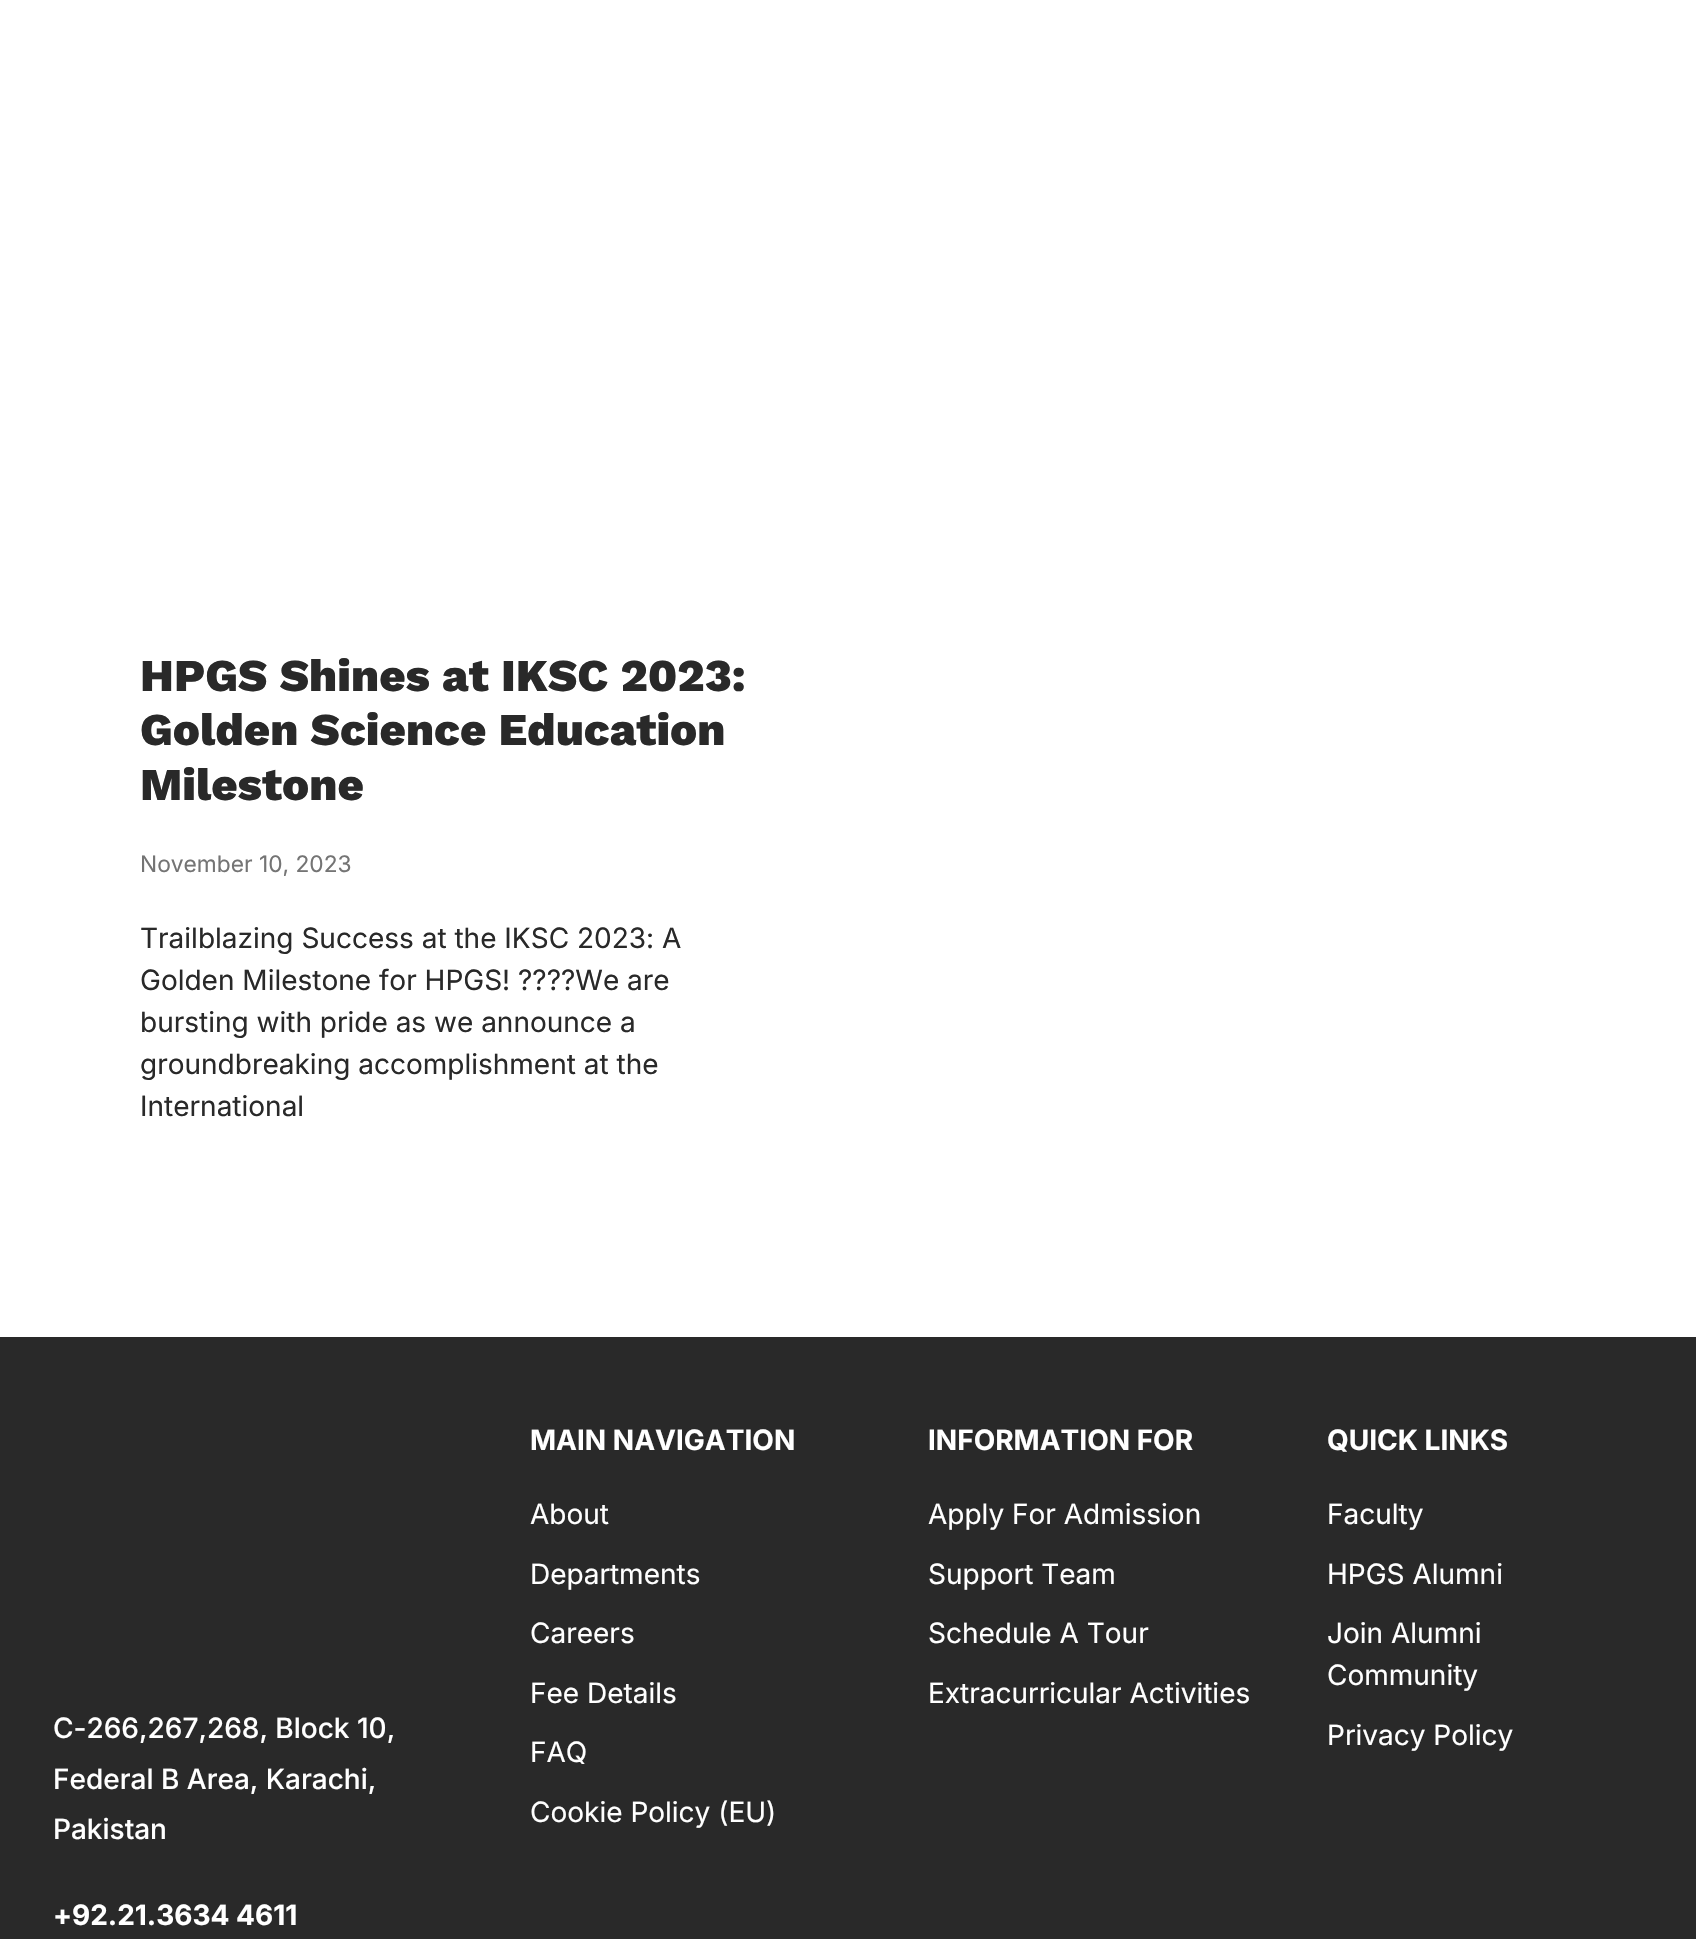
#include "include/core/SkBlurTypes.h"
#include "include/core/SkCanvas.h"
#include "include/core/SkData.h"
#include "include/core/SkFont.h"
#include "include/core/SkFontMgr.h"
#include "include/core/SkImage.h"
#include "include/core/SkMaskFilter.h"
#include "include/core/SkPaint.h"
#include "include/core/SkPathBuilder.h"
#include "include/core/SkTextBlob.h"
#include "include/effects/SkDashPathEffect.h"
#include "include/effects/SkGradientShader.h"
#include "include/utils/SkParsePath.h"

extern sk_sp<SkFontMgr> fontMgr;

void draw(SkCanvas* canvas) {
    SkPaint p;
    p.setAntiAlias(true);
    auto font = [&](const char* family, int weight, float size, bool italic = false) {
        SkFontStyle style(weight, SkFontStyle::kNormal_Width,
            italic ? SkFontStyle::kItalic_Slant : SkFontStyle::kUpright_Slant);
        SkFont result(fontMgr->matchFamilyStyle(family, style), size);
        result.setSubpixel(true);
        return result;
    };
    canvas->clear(0xFFFFFFFF);
    auto font1 = font("Work Sans", 800, 45.5f);
    p.setColor(0xFF292929);
    {
        const struct { const char* s; float x, y; } items[] = {
            {"HPGS Shines at IKSC 2023:", 140, 691},
            {"Golden Science Education", 140, 745},
            {"Milestone", 140, 800},
        };
        for (auto [s, x, y] : items) {
            canvas->drawString(s, x, y, font1, p);
        }
    }
    auto font2 = font("Inter", 400, 22.75f);
    p.setColor(0xFF747474);
    canvas->drawString("November 10, 2023", 140, 872, font2, p);
    auto font3 = font("Inter", 400, 28);
    p.setColor(0xFF292929);
    {
        const struct { const char* s; float x, y; } items[] = {
            {"Trailblazing Success at the IKSC 2023: A", 140, 948},
            {"Golden Milestone for HPGS! ?\077?\077We are", 140, 990},
            {"bursting with pride as we announce a", 140, 1032},
            {"groundbreaking accomplishment at the", 140, 1074},
            {"International", 140, 1116},
        };
        for (auto [s, x, y] : items) {
            canvas->drawString(s, x, y, font3, p);
        }
    }
    canvas->drawRect(SkRect::MakeLTRB(0, 1337, 1696, 1939), p);
    auto font4 = font("Inter", 700, 28);
    p.setColor(0xFFFFFFFF);
    canvas->drawString("MAIN NAVIGATION", 530, 1450, font4, p);
    {
        const struct { const char* s; float x, y; } items[] = {
            {"About", 530, 1524},
            {"Departments", 530, 1584},
            {"Careers", 530, 1643},
            {"Fee Details", 530, 1703},
            {"FAQ", 530, 1762},
            {"Cookie Policy (EU)", 530, 1822},
        };
        for (auto [s, x, y] : items) {
            canvas->drawString(s, x, y, font3, p);
        }
    }
    canvas->drawString("INFORMATION FOR", 928, 1450, font4, p);
    {
        const struct { const char* s; float x, y; } items[] = {
            {"Apply For Admission", 928, 1524},
            {"Support Team", 928, 1584},
            {"Schedule A Tour", 928, 1643},
            {"Extracurricular Activities", 928, 1703},
        };
        for (auto [s, x, y] : items) {
            canvas->drawString(s, x, y, font3, p);
        }
    }
    canvas->drawString("QUICK LINKS", 1327, 1450, font4, p);
    {
        const struct { const char* s; float x, y; } items[] = {
            {"Faculty", 1327, 1524},
            {"HPGS Alumni", 1327, 1584},
            {"Join Alumni", 1327, 1643},
            {"Community", 1327, 1685},
            {"Privacy Policy", 1327, 1745},
        };
        for (auto [s, x, y] : items) {
            canvas->drawString(s, x, y, font3, p);
        }
    }
    auto font5 = font("Inter", 500, 28);
    {
        const struct { const char* s; float x, y; } items[] = {
            {"C-266,267,268, Block 10,", 53, 1738},
            {"Federal B Area, Karachi,", 53, 1789},
            {"Pakistan", 53, 1839},
        };
        for (auto [s, x, y] : items) {
            canvas->drawString(s, x, y, font5, p);
        }
    }
    canvas->drawString("+92.21.3634 4611", 53, 1925, font4, p);
}
